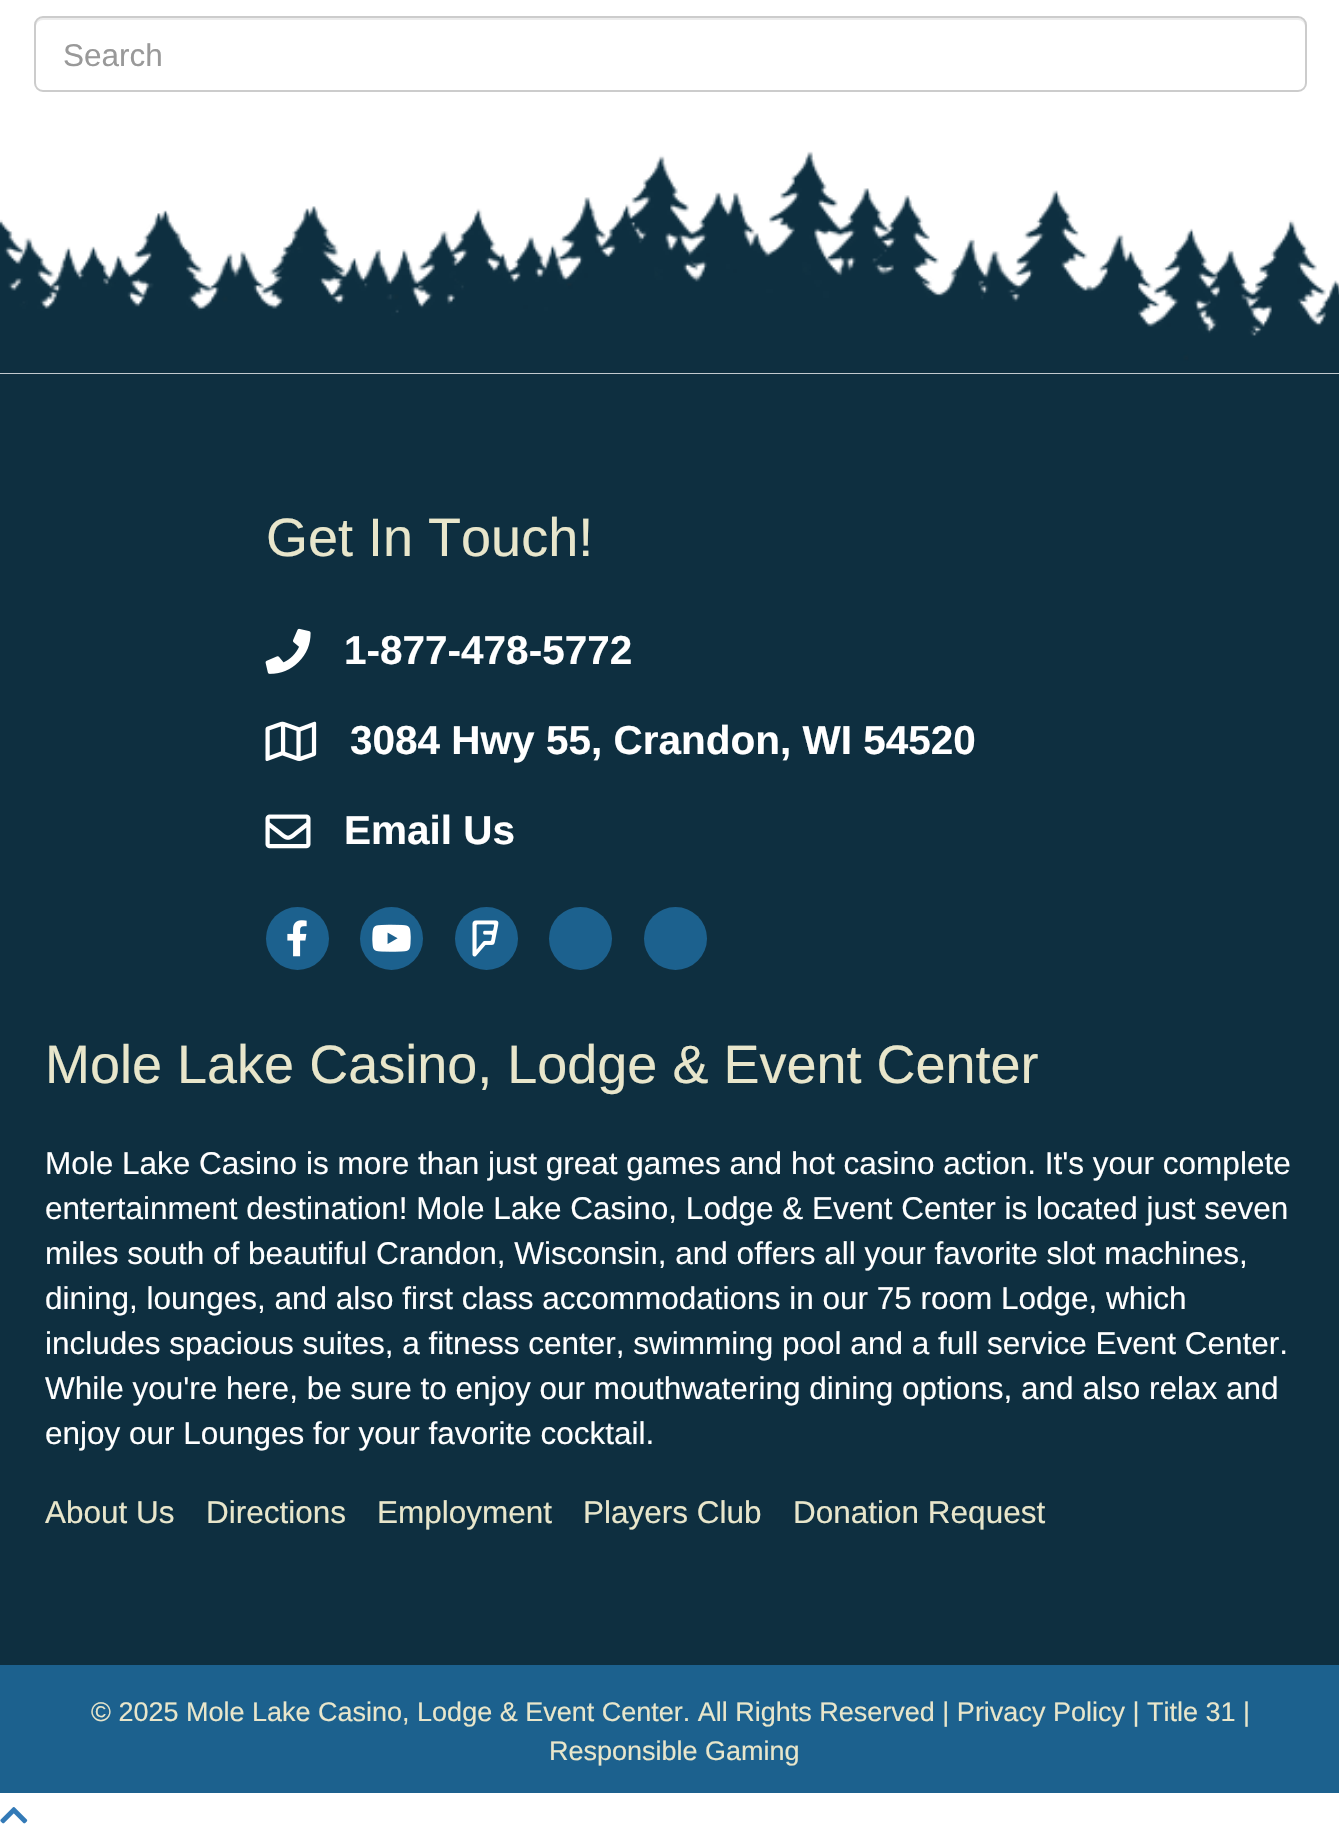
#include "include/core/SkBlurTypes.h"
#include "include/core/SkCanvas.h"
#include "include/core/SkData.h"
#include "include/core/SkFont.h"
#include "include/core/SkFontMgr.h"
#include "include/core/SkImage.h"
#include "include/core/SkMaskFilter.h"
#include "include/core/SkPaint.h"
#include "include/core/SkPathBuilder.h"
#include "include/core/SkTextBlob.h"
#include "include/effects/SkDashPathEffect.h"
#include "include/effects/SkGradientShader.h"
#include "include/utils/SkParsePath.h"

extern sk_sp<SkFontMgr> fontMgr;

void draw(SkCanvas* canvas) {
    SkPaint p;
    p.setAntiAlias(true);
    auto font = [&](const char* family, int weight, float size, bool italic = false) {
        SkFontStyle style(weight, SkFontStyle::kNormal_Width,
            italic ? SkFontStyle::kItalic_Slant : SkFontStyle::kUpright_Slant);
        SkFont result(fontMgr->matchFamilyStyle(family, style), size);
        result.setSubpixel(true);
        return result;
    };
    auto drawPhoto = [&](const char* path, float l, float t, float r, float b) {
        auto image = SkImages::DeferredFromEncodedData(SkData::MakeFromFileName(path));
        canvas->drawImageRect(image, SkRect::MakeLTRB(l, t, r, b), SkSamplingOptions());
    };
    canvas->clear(0xFFFFFFFF);
    p.setColor(0xFFECECEC);
    canvas->drawPath(SkPathBuilder().moveTo(43, 20).lineTo(1298, 20).cubicTo(1302, 20, 1305, 23, 1305, 27).lineTo(1305, 25).cubicTo(1305, 21, 1302, 18, 1298, 18).lineTo(43, 18).cubicTo(39, 18, 36, 21, 36, 25).lineTo(36, 27).cubicTo(36, 23, 39, 20, 43, 20).close().detach(), p);
    p.setStyle(SkPaint::kStroke_Style);
    p.setStrokeWidth(2);
    p.setColor(0xFFCCCCCC);
    canvas->drawRoundRect(SkRect::MakeLTRB(35, 17, 1306, 91), 8, 8, p);
    auto font1 = font("Liberation Sans", 400, 31.5f);
    p.setStyle(SkPaint::kFill_Style);
    p.setColor(0xFF999999);
    canvas->drawString("Search", 63, 66, font1, p);
    drawPhoto("media/1.png", 0, 151, 1339, 374);
    p.setColor(0xFF0E2F40);
    canvas->drawRect(SkRect::MakeLTRB(0, 374, 1339, 1665), p);
    auto font2 = font("Liberation Sans", 400, 54);
    p.setColor(0xFFE8E6CB);
    canvas->drawString("Get In Touch!", 266, 556, font2, p);
    drawPhoto("media/2.png", 265, 628, 311, 674);
    auto font3 = font("Liberation Sans", 700, 40.5f);
    p.setColor(0xFFFFFFFF);
    canvas->drawString("1-877-478-5772", 344, 664, font3, p);
    drawPhoto("media/3.png", 265, 721, 317, 762);
    canvas->drawString("3084 Hwy 55, Crandon, WI 54520", 350, 754, font3, p);
    drawPhoto("media/4.png", 265, 814, 311, 849);
    canvas->drawString("Email Us", 344, 844, font3, p);
    p.setColor(0xFF1C618E);
    canvas->drawCircle(297.5f, 938.5f, 31.5f, p);
    drawPhoto("media/5.png", 287, 920, 307, 957);
    canvas->drawCircle(391.5f, 938.5f, 31.5f, p);
    drawPhoto("media/6.png", 372, 924, 411, 952);
    canvas->drawCircle(486.5f, 938.5f, 31.5f, p);
    drawPhoto("media/7.png", 472, 920, 499, 957);
    canvas->drawCircle(580.5f, 938.5f, 31.5f, p);
    canvas->drawCircle(675.5f, 938.5f, 31.5f, p);
    p.setColor(0xFFE8E6CB);
    canvas->drawString("Mole Lake Casino, Lodge & Event Center", 45, 1083, font2, p);
    p.setColor(0xFFFFFFFF);
    {
        const struct { const char* s; float x, y; } items[] = {
            {"Mole Lake Casino is more than just great games and hot casino action. It's your complete", 45, 1174},
            {"entertainment destination! Mole Lake Casino, Lodge & Event Center is located just seven", 45, 1219},
            {"miles south of beautiful Crandon, Wisconsin, and offers all your favorite slot machines,", 45, 1264},
            {"dining, lounges, and also first class accommodations in our 75 room Lodge, which", 45, 1309},
            {"includes spacious suites, a fitness center, swimming pool and a full service Event Center.", 45, 1354},
            {"While you're here, be sure to enjoy our mouthwatering dining options, and also relax and", 45, 1399},
            {"enjoy our Lounges for your favorite cocktail.", 45, 1444},
        };
        for (auto [s, x, y] : items) {
            canvas->drawString(s, x, y, font1, p);
        }
    }
    p.setColor(0xFFE8E6CB);
    {
        const struct { const char* s; float x, y; } items[] = {
            {"About Us", 45, 1523},
            {"Directions", 206, 1523},
            {"Employment", 377, 1523},
            {"Players Club", 583, 1523},
            {"Donation Request", 793, 1523},
        };
        for (auto [s, x, y] : items) {
            canvas->drawString(s, x, y, font1, p);
        }
    }
    p.setColor(0xFF1C618E);
    canvas->drawRect(SkRect::MakeLTRB(0, 1665, 1339, 1793), p);
    auto font4 = font("Liberation Sans", 400, 27);
    p.setColor(0xFFE8E6CB);
    canvas->drawString("© 2025 Mole Lake Casino, Lodge & Event Center. All Rights Reserved | Privacy Policy | Title 31 |", 91, 1721, font4, p);
    canvas->drawString("Responsible Gaming", 549, 1760, font4, p);
    drawPhoto("media/8.png", 0, 1807, 28, 1824);
}
